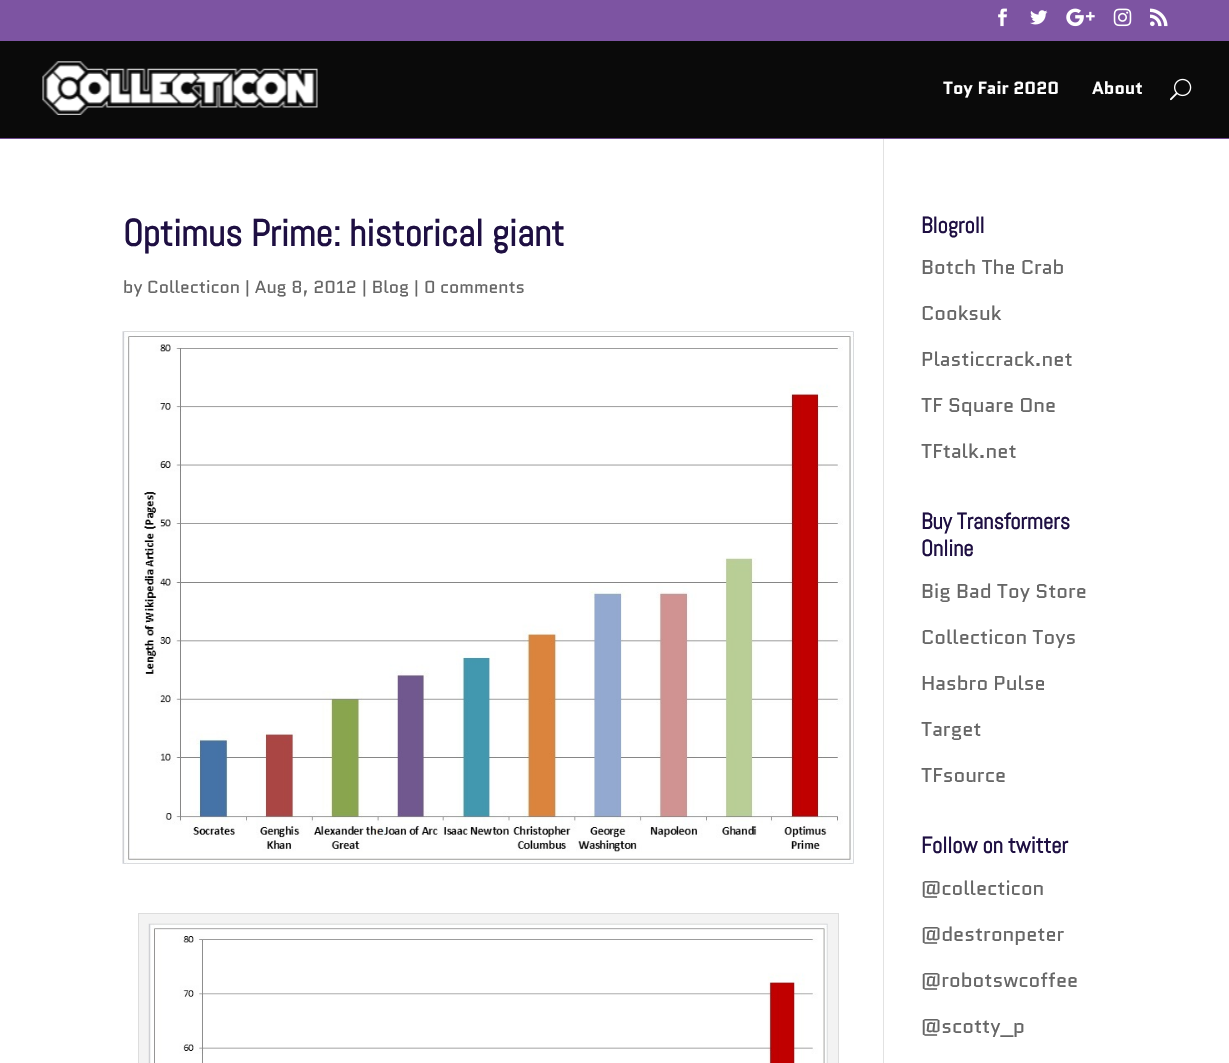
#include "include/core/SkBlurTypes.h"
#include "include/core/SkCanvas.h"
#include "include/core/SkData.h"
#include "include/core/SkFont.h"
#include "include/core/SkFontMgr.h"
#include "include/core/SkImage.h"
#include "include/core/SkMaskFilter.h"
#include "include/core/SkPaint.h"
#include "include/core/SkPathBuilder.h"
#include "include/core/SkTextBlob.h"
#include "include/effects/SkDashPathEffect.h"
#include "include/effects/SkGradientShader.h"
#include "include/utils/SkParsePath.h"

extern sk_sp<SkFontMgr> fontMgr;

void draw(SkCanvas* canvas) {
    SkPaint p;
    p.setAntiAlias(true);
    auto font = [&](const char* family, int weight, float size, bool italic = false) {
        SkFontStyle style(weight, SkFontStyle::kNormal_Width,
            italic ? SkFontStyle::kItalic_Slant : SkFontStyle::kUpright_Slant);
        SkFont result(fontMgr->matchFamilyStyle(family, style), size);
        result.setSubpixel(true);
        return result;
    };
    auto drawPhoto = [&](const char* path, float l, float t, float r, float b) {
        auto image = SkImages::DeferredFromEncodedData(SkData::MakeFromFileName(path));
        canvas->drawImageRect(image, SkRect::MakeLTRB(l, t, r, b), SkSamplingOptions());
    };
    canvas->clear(0xFFFFFFFF);
    p.setColor(0xFF7D54A2);
    canvas->drawRect(SkRect::MakeLTRB(0, 0, 1229, 41), p);
    drawPhoto("media/1.png", 998, 8, 1007, 27);
    drawPhoto("media/2.png", 1030, 10, 1048, 25);
    drawPhoto("media/3.png", 1066, 8, 1095, 27);
    drawPhoto("media/4.png", 1113, 8, 1132, 27);
    drawPhoto("media/5.png", 1150, 8, 1168, 27);
    p.setColor(0xFF714C92);
    canvas->drawRect(SkRect::MakeLTRB(0, 138, 1229, 139), p);
    p.setColor(0xFF0A0A0A);
    canvas->drawRect(SkRect::MakeLTRB(0, 41, 1229, 138), p);
    drawPhoto("media/6.png", 42, 61, 318, 115);
    auto font1 = font("Quantico", 700, 17.5f);
    p.setColor(0xFFFFFFFF);
    canvas->drawString("Toy Fair 2020", 943, 94, font1, p);
    canvas->drawString("About", 1092, 94, font1, p);
    drawPhoto("media/7.png", 1170, 78, 1192, 101);
    p.setColor(0xFFE2E2E2);
    canvas->drawRect(SkRect::MakeLTRB(883, 139, 884, 1063), p);
    auto font2 = font("Abel", 700, 37.5f);
    p.setColor(0xFF1E0F42);
    canvas->drawString("Optimus Prime: historical giant", 123, 246, font2, p);
    auto font3 = font("Quantico", 400, 17.5f);
    p.setColor(0xFF666666);
    canvas->drawString("by Collecticon | Aug 8, 2012 | Blog | 0 comments", 123, 293, font3, p);
    drawPhoto("media/8.png", 122, 331, 854, 864);
    p.setColor(0xFFF3F3F3);
    canvas->drawRect(SkRect::MakeLTRB(138.5f, 913.5f, 838.5f, 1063.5f), p);
    p.setStyle(SkPaint::kStroke_Style);
    p.setStrokeWidth(1);
    p.setColor(0xFFDDDDDD);
    canvas->drawRect(SkRect::MakeLTRB(138.5f, 913.5f, 838.5f, 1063.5f), p);
    drawPhoto("media/9.png", 148, 923, 828, 1063);
    auto font4 = font("Abel", 700, 22.5f);
    p.setStyle(SkPaint::kFill_Style);
    p.setColor(0xFF1E0F42);
    canvas->drawString("Blogroll", 921, 233, font4, p);
    auto font5 = font("Quantico", 400, 20);
    p.setColor(0xFF666666);
    {
        const struct { const char* s; float x, y; } items[] = {
            {"Botch The Crab", 921, 274},
            {"Cooksuk", 921, 320},
            {"Plasticcrack.net", 921, 366},
            {"TF Square One", 921, 412},
            {"TFtalk.net", 921, 458},
        };
        for (auto [s, x, y] : items) {
            canvas->drawString(s, x, y, font5, p);
        }
    }
    p.setColor(0xFF1E0F42);
    canvas->drawString("Buy Transformers", 921, 529, font4, p);
    canvas->drawString("Online", 921, 556, font4, p);
    p.setColor(0xFF666666);
    {
        const struct { const char* s; float x, y; } items[] = {
            {"Big Bad Toy Store", 921, 598},
            {"Collecticon Toys", 921, 644},
            {"Hasbro Pulse", 921, 690},
            {"Target", 921, 736},
            {"TFsource", 921, 782},
        };
        for (auto [s, x, y] : items) {
            canvas->drawString(s, x, y, font5, p);
        }
    }
    p.setColor(0xFF1E0F42);
    canvas->drawString("Follow on twitter", 921, 853, font4, p);
    p.setColor(0xFF666666);
    {
        const struct { const char* s; float x, y; } items[] = {
            {"@collecticon", 921, 895},
            {"@destronpeter", 921, 941},
            {"@robotswcoffee", 921, 987},
            {"@scotty_p", 921, 1033},
        };
        for (auto [s, x, y] : items) {
            canvas->drawString(s, x, y, font5, p);
        }
    }
}
